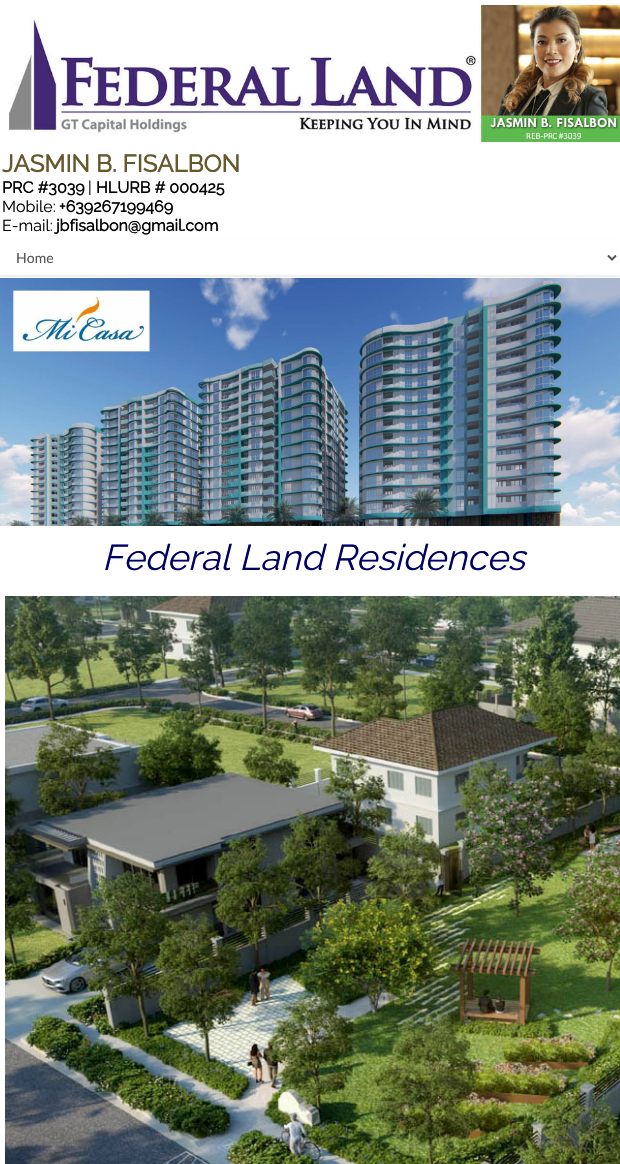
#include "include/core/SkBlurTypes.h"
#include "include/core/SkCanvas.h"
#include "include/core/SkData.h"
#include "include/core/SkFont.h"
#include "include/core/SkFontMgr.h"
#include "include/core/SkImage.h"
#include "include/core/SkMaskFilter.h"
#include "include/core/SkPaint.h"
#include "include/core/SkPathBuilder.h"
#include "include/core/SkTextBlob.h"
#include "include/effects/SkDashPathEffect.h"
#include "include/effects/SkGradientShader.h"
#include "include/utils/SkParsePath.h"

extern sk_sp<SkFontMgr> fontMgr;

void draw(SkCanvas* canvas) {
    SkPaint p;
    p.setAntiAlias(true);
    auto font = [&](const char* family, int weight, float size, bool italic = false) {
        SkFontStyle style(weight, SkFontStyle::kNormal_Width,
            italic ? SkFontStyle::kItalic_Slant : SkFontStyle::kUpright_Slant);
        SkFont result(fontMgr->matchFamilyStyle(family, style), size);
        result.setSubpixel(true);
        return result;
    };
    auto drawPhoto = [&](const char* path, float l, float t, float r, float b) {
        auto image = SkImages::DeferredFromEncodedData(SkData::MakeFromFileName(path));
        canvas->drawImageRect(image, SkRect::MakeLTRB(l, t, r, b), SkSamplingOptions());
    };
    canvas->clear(0xFFFFFFFF);
    drawPhoto("media/1.png", 9, 5, 620, 142);
    auto font1 = font("Raleway", 700, 24);
    p.setColor(0xFF66572C);
    canvas->drawString("JASMIN B. FISALBON", 2, 172, font1, p);
    auto font2 = font("Raleway", 700, 16);
    p.setColor(0xFF000000);
    canvas->drawString("PRC #3039", 2, 193, font2, p);
    auto font3 = font("Raleway", 100, 16);
    canvas->drawString("|", 88, 193, font3, p);
    canvas->drawString("HLURB # 000425", 96, 193, font2, p);
    canvas->drawString("Mobile:", 2, 212, font3, p);
    canvas->drawString("+639267199469", 59, 212, font2, p);
    canvas->drawString("E-mail:", 2, 231, font3, p);
    canvas->drawString("jbfisalbon@gmail.com", 56, 231, font2, p);
    p.setColor(0x12000000);
    p.setMaskFilter(SkMaskFilter::MakeBlur(kNormal_SkBlurStyle, 1));
    canvas->drawRect(SkRect::MakeLTRB(0, 241, 620, 277), p);
    p.setMaskFilter(nullptr);
    p.setColor(0xFFFFFFFF);
    canvas->drawRect(SkRect::MakeLTRB(0, 240, 620, 275), p);
    p.setStyle(SkPaint::kStroke_Style);
    p.setStrokeWidth(2);
    p.setColor(0xFF555555);
    canvas->drawPath(SkPathBuilder().moveTo(608, 255.5f).lineTo(612, 259.5f).lineTo(616, 255.5f).detach(), p);
    auto font4 = font("Lato", 400, 14);
    p.setStyle(SkPaint::kFill_Style);
    canvas->drawString("Home", 16, 263, font4, p);
    drawPhoto("media/2.png", 0, 278, 620, 526);
    auto font5 = font("Raleway", 100, 36, true);
    p.setColor(0xFF000066);
    canvas->drawString("Federal Land Residences", 102, 570, font5, p);
    drawPhoto("media/3.png", 5, 596, 620, 1164);
}
